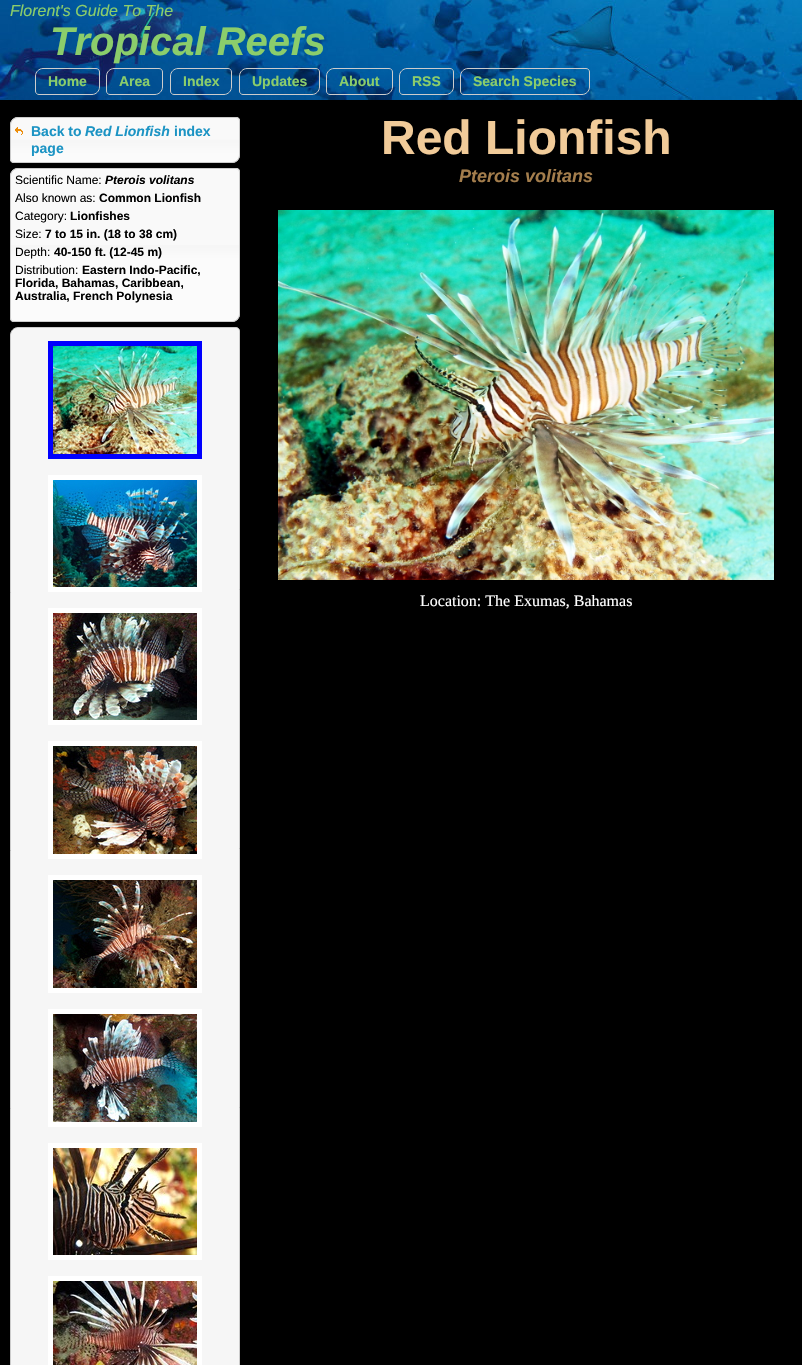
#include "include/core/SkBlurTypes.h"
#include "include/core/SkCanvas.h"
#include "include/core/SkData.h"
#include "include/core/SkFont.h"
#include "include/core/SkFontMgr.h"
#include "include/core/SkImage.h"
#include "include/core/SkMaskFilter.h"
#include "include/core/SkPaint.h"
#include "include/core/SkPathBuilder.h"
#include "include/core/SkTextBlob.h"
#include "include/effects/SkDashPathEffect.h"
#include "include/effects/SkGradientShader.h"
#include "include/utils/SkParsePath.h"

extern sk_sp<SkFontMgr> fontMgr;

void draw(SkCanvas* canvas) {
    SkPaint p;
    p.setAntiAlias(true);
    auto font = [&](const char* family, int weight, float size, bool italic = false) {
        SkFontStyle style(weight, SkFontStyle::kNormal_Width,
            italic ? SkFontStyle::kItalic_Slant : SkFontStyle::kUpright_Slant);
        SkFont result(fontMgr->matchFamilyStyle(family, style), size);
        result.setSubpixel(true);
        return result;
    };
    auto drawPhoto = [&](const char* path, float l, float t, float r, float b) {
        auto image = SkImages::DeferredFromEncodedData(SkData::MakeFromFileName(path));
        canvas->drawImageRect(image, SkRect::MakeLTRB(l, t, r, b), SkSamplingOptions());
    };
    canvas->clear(0xFF000000);
    drawPhoto("media/1.png", 0, 0, 802, 100);
    auto font1 = font("Liberation Sans", 400, 16, true);
    p.setColor(0xFF8BCD6B);
    canvas->drawString("Florent's Guide To The", 10, 16, font1, p);
    auto font2 = font("Liberation Sans", 700, 40, true);
    canvas->drawString("Tropical Reefs", 50, 55, font2, p);
    p.setStyle(SkPaint::kStroke_Style);
    p.setStrokeWidth(1);
    p.setColor(0xFFCCCCCC);
    canvas->drawPath(SkPathBuilder().moveTo(43, 68.5f).lineTo(96, 68.5f).cubicTo(98, 68.5f, 99.5f, 70, 99.5f, 72).lineTo(99.5f, 87).cubicTo(99.5f, 91, 96, 94.5f, 92, 94.5f).lineTo(39, 94.5f).cubicTo(37, 94.5f, 35.5f, 93, 35.5f, 91).lineTo(35.5f, 76).cubicTo(35.5f, 72, 39, 68.5f, 43, 68.5f).close().detach(), p);
    auto font3 = font("Liberation Sans", 700, 14);
    p.setStyle(SkPaint::kFill_Style);
    p.setColor(0xFF8BCD6B);
    canvas->drawString("Home", 48, 86, font3, p);
    p.setStyle(SkPaint::kStroke_Style);
    p.setColor(0xFFCCCCCC);
    canvas->drawPath(SkPathBuilder().moveTo(114, 68.5f).lineTo(159, 68.5f).cubicTo(161, 68.5f, 162.5f, 70, 162.5f, 72).lineTo(162.5f, 87).cubicTo(162.5f, 91, 159, 94.5f, 155, 94.5f).lineTo(110, 94.5f).cubicTo(108, 94.5f, 106.5f, 93, 106.5f, 91).lineTo(106.5f, 76).cubicTo(106.5f, 72, 110, 68.5f, 114, 68.5f).close().detach(), p);
    p.setStyle(SkPaint::kFill_Style);
    p.setColor(0xFF8BCD6B);
    canvas->drawString("Area", 119, 86, font3, p);
    p.setStyle(SkPaint::kStroke_Style);
    p.setColor(0xFFCCCCCC);
    canvas->drawPath(SkPathBuilder().moveTo(178, 68.5f).lineTo(228, 68.5f).cubicTo(230, 68.5f, 231.5f, 70, 231.5f, 72).lineTo(231.5f, 87).cubicTo(231.5f, 91, 228, 94.5f, 224, 94.5f).lineTo(174, 94.5f).cubicTo(172, 94.5f, 170.5f, 93, 170.5f, 91).lineTo(170.5f, 76).cubicTo(170.5f, 72, 174, 68.5f, 178, 68.5f).close().detach(), p);
    p.setStyle(SkPaint::kFill_Style);
    p.setColor(0xFF8BCD6B);
    canvas->drawString("Index", 183, 86, font3, p);
    p.setStyle(SkPaint::kStroke_Style);
    p.setColor(0xFFCCCCCC);
    canvas->drawPath(SkPathBuilder().moveTo(247, 68.5f).lineTo(316, 68.5f).cubicTo(318, 68.5f, 319.5f, 70, 319.5f, 72).lineTo(319.5f, 87).cubicTo(319.5f, 91, 316, 94.5f, 312, 94.5f).lineTo(243, 94.5f).cubicTo(241, 94.5f, 239.5f, 93, 239.5f, 91).lineTo(239.5f, 76).cubicTo(239.5f, 72, 243, 68.5f, 247, 68.5f).close().detach(), p);
    p.setStyle(SkPaint::kFill_Style);
    p.setColor(0xFF8BCD6B);
    canvas->drawString("Updates", 252, 86, font3, p);
    p.setStyle(SkPaint::kStroke_Style);
    p.setColor(0xFFCCCCCC);
    canvas->drawPath(SkPathBuilder().moveTo(334, 68.5f).lineTo(389, 68.5f).cubicTo(391, 68.5f, 392.5f, 70, 392.5f, 72).lineTo(392.5f, 87).cubicTo(392.5f, 91, 389, 94.5f, 385, 94.5f).lineTo(330, 94.5f).cubicTo(328, 94.5f, 326.5f, 93, 326.5f, 91).lineTo(326.5f, 76).cubicTo(326.5f, 72, 330, 68.5f, 334, 68.5f).close().detach(), p);
    p.setStyle(SkPaint::kFill_Style);
    p.setColor(0xFF8BCD6B);
    canvas->drawString("About", 339, 86, font3, p);
    p.setStyle(SkPaint::kStroke_Style);
    p.setColor(0xFFCCCCCC);
    canvas->drawPath(SkPathBuilder().moveTo(407, 68.5f).lineTo(450, 68.5f).cubicTo(452, 68.5f, 453.5f, 70, 453.5f, 72).lineTo(453.5f, 87).cubicTo(453.5f, 91, 450, 94.5f, 446, 94.5f).lineTo(403, 94.5f).cubicTo(401, 94.5f, 399.5f, 93, 399.5f, 91).lineTo(399.5f, 76).cubicTo(399.5f, 72, 403, 68.5f, 407, 68.5f).close().detach(), p);
    p.setStyle(SkPaint::kFill_Style);
    p.setColor(0xFF8BCD6B);
    canvas->drawString("RSS", 412, 86, font3, p);
    p.setStyle(SkPaint::kStroke_Style);
    p.setColor(0xFFCCCCCC);
    canvas->drawPath(SkPathBuilder().moveTo(468, 68.5f).lineTo(586, 68.5f).cubicTo(588, 68.5f, 589.5f, 70, 589.5f, 72).lineTo(589.5f, 87).cubicTo(589.5f, 91, 586, 94.5f, 582, 94.5f).lineTo(464, 94.5f).cubicTo(462, 94.5f, 460.5f, 93, 460.5f, 91).lineTo(460.5f, 76).cubicTo(460.5f, 72, 464, 68.5f, 468, 68.5f).close().detach(), p);
    p.setStyle(SkPaint::kFill_Style);
    p.setColor(0xFF8BCD6B);
    canvas->drawString("Search Species", 473, 86, font3, p);
    drawPhoto("media/2.png", 10, 117, 240, 163);
    p.setStyle(SkPaint::kStroke_Style);
    p.setColor(0xFFCCCCCC);
    canvas->drawPath(SkPathBuilder().moveTo(18, 117.5f).lineTo(236, 117.5f).cubicTo(238, 117.5f, 239.5f, 119, 239.5f, 121).lineTo(239.5f, 155).cubicTo(239.5f, 159, 236, 162.5f, 232, 162.5f).lineTo(14, 162.5f).cubicTo(12, 162.5f, 10.5f, 161, 10.5f, 159).lineTo(10.5f, 125).cubicTo(10.5f, 121, 14, 117.5f, 18, 117.5f).close().detach(), p);
    drawPhoto("media/3.png", 15, 127, 23, 135);
    p.setStyle(SkPaint::kFill_Style);
    p.setColor(0xFF1C94C4);
    canvas->drawString("Back to", 31, 136, font3, p);
    auto font4 = font("Liberation Sans", 700, 14, true);
    canvas->drawString("Red Lionfish", 85, 136, font4, p);
    canvas->drawString("index", 174, 136, font3, p);
    canvas->drawString("page", 31, 153, font3, p);
    drawPhoto("media/4.png", 10, 168, 240, 322);
    p.setStyle(SkPaint::kStroke_Style);
    p.setColor(0xFFCCCCCC);
    canvas->drawPath(SkPathBuilder().moveTo(18, 168.5f).lineTo(236, 168.5f).cubicTo(238, 168.5f, 239.5f, 170, 239.5f, 172).lineTo(239.5f, 314).cubicTo(239.5f, 318, 236, 321.5f, 232, 321.5f).lineTo(14, 321.5f).cubicTo(12, 321.5f, 10.5f, 320, 10.5f, 318).lineTo(10.5f, 176).cubicTo(10.5f, 172, 14, 168.5f, 18, 168.5f).close().detach(), p);
    auto font5 = font("Liberation Sans", 400, 12);
    p.setStyle(SkPaint::kFill_Style);
    p.setColor(0xFF000000);
    canvas->drawString("Scientific Name:", 15, 184, font5, p);
    auto font6 = font("Liberation Sans", 700, 12, true);
    canvas->drawString("Pterois volitans", 105, 184, font6, p);
    canvas->drawString("Also known as:", 15, 202, font5, p);
    auto font7 = font("Liberation Sans", 700, 12);
    canvas->drawString("Common Lionfish", 99, 202, font7, p);
    canvas->drawString("Category:", 15, 220, font5, p);
    canvas->drawString("Lionfishes", 70, 220, font7, p);
    canvas->drawString("Size:", 15, 238, font5, p);
    canvas->drawString("7 to 15 in. (18 to 38 cm)", 45, 238, font7, p);
    canvas->drawString("Depth:", 15, 256, font5, p);
    canvas->drawString("40-150 ft. (12-45 m)", 54, 256, font7, p);
    canvas->drawString("Distribution:", 15, 274, font5, p);
    {
        const struct { const char* s; float x, y; } items[] = {
            {"Eastern Indo-Pacific,", 82, 274},
            {"Florida, Bahamas, Caribbean,", 15, 287},
            {"Australia, French Polynesia", 15, 300},
        };
        for (auto [s, x, y] : items) {
            canvas->drawString(s, x, y, font7, p);
        }
    }
    p.setColor(0xFFF6F6F6);
    canvas->drawPath(SkPathBuilder().moveTo(18, 327.5f).lineTo(236, 327.5f).cubicTo(238, 327.5f, 239.5f, 329, 239.5f, 331).lineTo(239.5f, 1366).cubicTo(239.5f, 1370, 236, 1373.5f, 232, 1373.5f).lineTo(14, 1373.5f).cubicTo(12, 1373.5f, 10.5f, 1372, 10.5f, 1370).lineTo(10.5f, 335).cubicTo(10.5f, 331, 14, 327.5f, 18, 327.5f).close().detach(), p);
    p.setStyle(SkPaint::kStroke_Style);
    p.setColor(0xFFCCCCCC);
    canvas->drawPath(SkPathBuilder().moveTo(18, 327.5f).lineTo(236, 327.5f).cubicTo(238, 327.5f, 239.5f, 329, 239.5f, 331).lineTo(239.5f, 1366).cubicTo(239.5f, 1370, 236, 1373.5f, 232, 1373.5f).lineTo(14, 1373.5f).cubicTo(12, 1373.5f, 10.5f, 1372, 10.5f, 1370).lineTo(10.5f, 335).cubicTo(10.5f, 331, 14, 327.5f, 18, 327.5f).close().detach(), p);
    p.setStrokeWidth(5);
    p.setColor(0xFF0000FF);
    canvas->drawRect(SkRect::MakeLTRB(50.5f, 343.5f, 199.5f, 456.5f), p);
    drawPhoto("media/5.png", 53, 346, 197, 454);
    p.setColor(0xFFFFFFFF);
    canvas->drawRect(SkRect::MakeLTRB(50.5f, 477.5f, 199.5f, 589.5f), p);
    drawPhoto("media/6.png", 53, 480, 197, 587);
    canvas->drawRect(SkRect::MakeLTRB(50.5f, 610.5f, 199.5f, 722.5f), p);
    drawPhoto("media/7.png", 53, 613, 197, 720);
    canvas->drawRect(SkRect::MakeLTRB(50.5f, 743.5f, 199.5f, 856.5f), p);
    drawPhoto("media/8.png", 53, 746, 197, 854);
    canvas->drawRect(SkRect::MakeLTRB(50.5f, 877.5f, 199.5f, 990.5f), p);
    drawPhoto("media/9.png", 53, 880, 197, 988);
    canvas->drawRect(SkRect::MakeLTRB(50.5f, 1011.5f, 199.5f, 1124.5f), p);
    drawPhoto("media/10.png", 53, 1014, 197, 1122);
    canvas->drawRect(SkRect::MakeLTRB(50.5f, 1145.5f, 199.5f, 1257.5f), p);
    drawPhoto("media/11.png", 53, 1148, 197, 1255);
    canvas->drawRect(SkRect::MakeLTRB(50.5f, 1278.5f, 199.5f, 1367.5f), p);
    drawPhoto("media/12.png", 53, 1281, 197, 1365);
    auto font8 = font("Liberation Sans", 700, 48);
    p.setStyle(SkPaint::kFill_Style);
    p.setColor(0xFFF1CB99);
    canvas->drawString("Red Lionfish", 381, 154, font8, p);
    auto font9 = font("Liberation Sans", 700, 18, true);
    p.setColor(0xFFA37D4C);
    canvas->drawString("Pterois volitans", 459, 182, font9, p);
    drawPhoto("media/13.png", 278, 210, 774, 580);
    auto font10 = font("Liberation Serif", 400, 16);
    p.setColor(0xFFFFFFFF);
    canvas->drawString("Location: The Exumas, Bahamas", 420, 606, font10, p);
}
